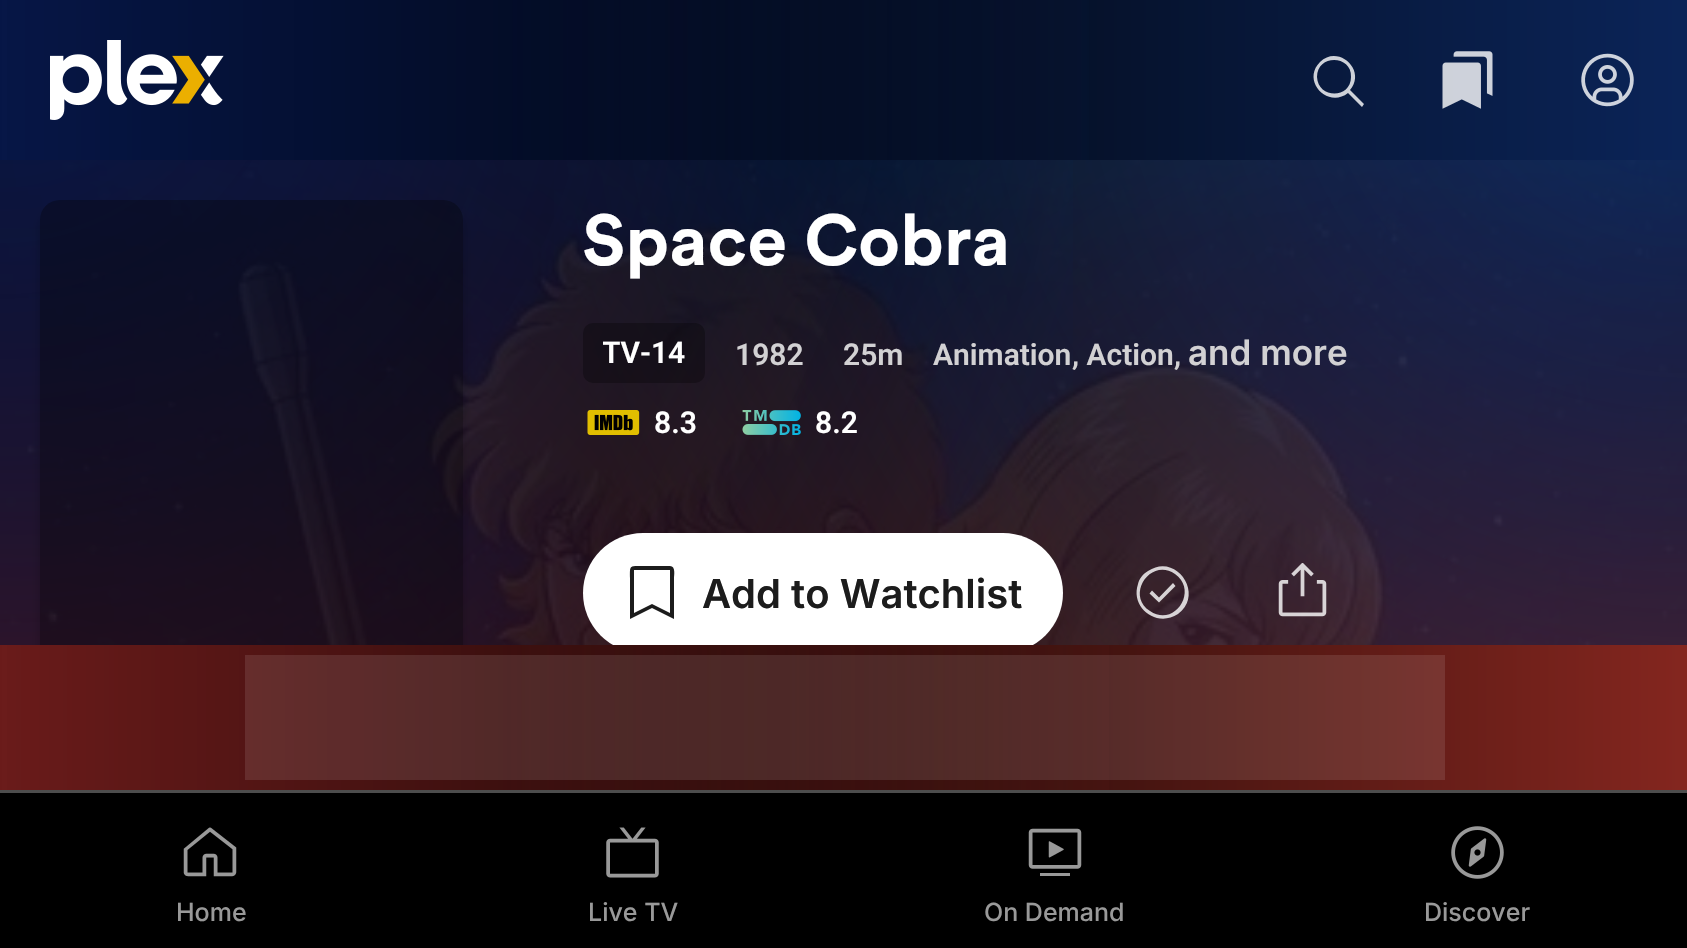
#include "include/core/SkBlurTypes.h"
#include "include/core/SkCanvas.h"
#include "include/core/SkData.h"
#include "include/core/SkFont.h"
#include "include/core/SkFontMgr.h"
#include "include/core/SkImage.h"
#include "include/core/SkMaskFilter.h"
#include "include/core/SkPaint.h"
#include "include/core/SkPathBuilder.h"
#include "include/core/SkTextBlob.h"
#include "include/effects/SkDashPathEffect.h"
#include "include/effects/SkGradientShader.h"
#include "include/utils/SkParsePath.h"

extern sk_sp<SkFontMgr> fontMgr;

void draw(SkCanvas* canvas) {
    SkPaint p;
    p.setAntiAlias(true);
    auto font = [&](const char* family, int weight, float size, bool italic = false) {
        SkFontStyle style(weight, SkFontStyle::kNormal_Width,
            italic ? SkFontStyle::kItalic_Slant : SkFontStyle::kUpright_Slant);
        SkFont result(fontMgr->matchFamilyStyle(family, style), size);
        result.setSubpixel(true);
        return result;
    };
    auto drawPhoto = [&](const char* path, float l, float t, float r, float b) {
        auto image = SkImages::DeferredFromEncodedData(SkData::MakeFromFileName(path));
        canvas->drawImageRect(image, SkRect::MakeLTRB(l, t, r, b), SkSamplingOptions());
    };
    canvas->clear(0xFFFFFFFF);
    {
        const SkColor colors[] = {0xFF000000, 0xFF0B2458};
        const float stops[] = {0.3f, 1};
        const SkPoint ends[] = {{0, 80}, {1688, 80}};
        p.setShader(SkGradientShader::MakeLinear(ends, colors, stops, 2, SkTileMode::kClamp));
        p.setAlpha(255);
    }
    canvas->drawRect(SkRect::MakeLTRB(7, 0, 1687, 160), p);
    {
        const SkColor colors[] = {0xFF061646, 0x00061646};
        const float stops[] = {0, 0.7f};
        const SkPoint ends[] = {{0, 80}, {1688, 80}};
        p.setShader(SkGradientShader::MakeLinear(ends, colors, stops, 2, SkTileMode::kClamp));
        p.setAlpha(255);
    }
    canvas->drawRect(SkRect::MakeLTRB(0, 0, 1089, 160), p);
    drawPhoto("media/1.png", 50, 40, 224, 120);
    p.setShader(nullptr);
    p.setColor(0xCCFFFFFF);
    canvas->drawPath(SkPathBuilder().moveTo(1364, 104).lineTo(1350, 90).cubicTo(1367, 70, 1338, 44, 1320, 62).cubicTo(1301, 81, 1328, 109, 1348, 93).lineTo(1362, 107).close().moveTo(1317, 77).cubicTo(1317, 54, 1352, 55, 1351, 77).cubicTo(1351, 99, 1318, 99, 1317, 77).close().detach(), p);
    drawPhoto("media/2.png", 1442, 51, 1493, 109);
    drawPhoto("media/3.png", 1581, 53, 1634, 107);
    {
        const SkColor colors[] = {0xFF6A1B1A, 0xFF000000};
        const float stops[] = {0, 0.7f};
        p.setShader(SkGradientShader::MakeRadial({0, 950}, 1688, colors, stops, 2, SkTileMode::kClamp));
        p.setAlpha(255);
    }
    canvas->drawRect(SkRect::MakeLTRB(0, 160, 1687, 645), p);
    {
        const SkColor colors[] = {0xFF84261F, 0x0084261F};
        const float stops[] = {0, 0.7f};
        p.setShader(SkGradientShader::MakeRadial({1688, 950}, 1688, colors, stops, 2, SkTileMode::kClamp));
        p.setAlpha(255);
    }
    canvas->drawRect(SkRect::MakeLTRB(581, 160, 1687, 645), p);
    {
        const SkColor colors[] = {0xFF0B2458, 0x000B2458};
        const float stops[] = {0, 0.7f};
        p.setShader(SkGradientShader::MakeRadial({1688, 0}, 1688, colors, stops, 2, SkTileMode::kClamp));
        p.setAlpha(255);
    }
    canvas->drawRect(SkRect::MakeLTRB(554, 160, 1687, 645), p);
    {
        const SkColor colors[] = {0xFF061646, 0x00061646};
        const float stops[] = {0, 0.7f};
        p.setShader(SkGradientShader::MakeRadial({0, 0}, 1688, colors, stops, 2, SkTileMode::kClamp));
        p.setAlpha(255);
    }
    canvas->drawRect(SkRect::MakeLTRB(0, 160, 1073, 645), p);
    drawPhoto("media/4.png", 0, 160, 1687, 645);
    canvas->save();
    canvas->clipPath(SkPathBuilder(SkPathFillType::kEvenOdd).moveTo(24, 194).lineTo(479, 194).lineTo(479, 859).lineTo(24, 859).close().moveTo(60, 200).lineTo(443, 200).cubicTo(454, 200, 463, 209, 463, 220).lineTo(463, 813).cubicTo(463, 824, 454, 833, 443, 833).lineTo(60, 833).cubicTo(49, 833, 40, 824, 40, 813).lineTo(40, 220).cubicTo(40, 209, 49, 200, 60, 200).close().detach(), true);
    p.setShader(nullptr);
    p.setColor(0x33000000);
    p.setMaskFilter(SkMaskFilter::MakeBlur(kNormal_SkBlurStyle, 5));
    canvas->drawRoundRect(SkRect::MakeLTRB(40, 210, 463, 843), 20, 20, p);
    p.setMaskFilter(nullptr);
    canvas->restore();
    p.setColor(0x4D000000);
    canvas->drawRoundRect(SkRect::MakeLTRB(40, 200, 463, 833), 20, 20, p);
    auto font1 = font("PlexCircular", 700, 71.25f);
    p.setColor(0xFFFFFFFF);
    canvas->drawString("Space Cobra", 582, 265, font1, p);
    p.setColor(0x4D000000);
    canvas->drawRoundRect(SkRect::MakeLTRB(583, 323, 705, 383), 10, 10, p);
    canvas->save();
    canvas->clipRect(SkRect::MakeLTRB(603, 333, 685, 373));
    auto font2 = font("Roboto", 600, 30);
    p.setColor(0xFFFFFFFF);
    canvas->drawString("TV-14", 602, 363, font2, p);
    canvas->restore();
    p.setColor(0xFFD2D1D3);
    {
        const struct { const char* s; float x, y; } items[] = {
            {"1982", 735, 365},
            {"25m", 843, 365},
            {"Animation", 933, 365},
            {", Action", 1072, 365},
            {",", 1174, 365},
        };
        for (auto [s, x, y] : items) {
            canvas->drawString(s, x, y, font2, p);
        }
    }
    auto font3 = font("Inter", 600, 35);
    canvas->drawString("and more", 1188, 365, font3, p);
    drawPhoto("media/5.png", 587, 410, 640, 435);
    p.setColor(0xFFFFFFFF);
    canvas->drawString("8.3", 654, 433, font2, p);
    drawPhoto("media/6.png", 742, 410, 801, 435);
    canvas->drawString("8.2", 815, 433, font2, p);
    canvas->drawRoundRect(SkRect::MakeLTRB(583, 533, 1063, 653), 60, 60, p);
    p.setColor(0xFF1C1C1C);
    canvas->drawPath(SkPathBuilder().moveTo(670, 570).lineTo(670, 613).lineTo(652, 604).lineTo(634, 613).lineTo(634, 570).close().moveTo(670, 566).lineTo(640, 566).cubicTo(629, 566, 630, 566, 630, 578).lineTo(630, 619).lineTo(652, 608).lineTo(674, 619).lineTo(674, 578).cubicTo(674, 576, 676, 566, 670, 566).close().detach(), p);
    auto font4 = font("Inter", 600, 40);
    canvas->drawString("Add to Watchlist", 702, 608, font4, p);
    p.setColor(0xCCFFFFFF);
    canvas->drawPath(SkPathBuilder().moveTo(1149.5f, 593.5f).lineTo(1159, 602.5f).lineTo(1175.5f, 586).lineTo(1173, 583).lineTo(1159, 597.5f).lineTo(1152, 590.5f).close().detach(), p);
    canvas->drawPath(SkPathBuilder(SkPathFillType::kEvenOdd).moveTo(1148, 571).cubicTo(1176, 552, 1205, 594, 1178, 614).cubicTo(1157, 628, 1130, 608, 1138, 584).cubicTo(1139, 579, 1143, 574, 1148, 571).close().moveTo(1150, 611).cubicTo(1174, 628, 1199, 591, 1175, 574).cubicTo(1151, 557, 1125, 595, 1150, 611).close().detach(), p);
    drawPhoto("media/7.png", 1278, 563, 1327, 617);
    {
        const SkColor colors[] = {0xFF000000, 0xFF84261F};
        const float stops[] = {0.3f, 1};
        const SkPoint ends[] = {{0, 718}, {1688, 718}};
        p.setShader(SkGradientShader::MakeLinear(ends, colors, stops, 2, SkTileMode::kClamp));
        p.setAlpha(255);
    }
    canvas->drawRect(SkRect::MakeLTRB(7, 645, 1687, 790), p);
    {
        const SkColor colors[] = {0xFF6A1B1A, 0x006A1B1A};
        const float stops[] = {0, 0.7f};
        const SkPoint ends[] = {{0, 718}, {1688, 718}};
        p.setShader(SkGradientShader::MakeLinear(ends, colors, stops, 2, SkTileMode::kClamp));
        p.setAlpha(255);
    }
    canvas->drawRect(SkRect::MakeLTRB(0, 645, 1109, 790), p);
    p.setShader(nullptr);
    {
        const struct { float l, t, r, b; SkColor color; } items[] = {
            {245, 655, 1445, 780, 0x1AFFFFFF},
            {0, 793, 1687, 948, 0xFF000000},
            {0, 790, 1687, 793, 0xFF4D4D4D},
        };
        for (auto [l, t, r, b, color] : items) {
            p.setColor(color);
            canvas->drawRect(SkRect::MakeLTRB(l, t, r, b), p);
        }
    }
    drawPhoto("media/8.png", 183, 827, 237, 877);
    auto font5 = font("Inter", 500, 25);
    p.setColor(0xFF999999);
    canvas->drawString("Home", 176, 921, font5, p);
    drawPhoto("media/9.png", 606, 827, 659, 878);
    canvas->drawString("Live TV", 588, 921, font5, p);
    drawPhoto("media/10.png", 1028, 828, 1082, 876);
    canvas->drawString("On Demand", 984, 921, font5, p);
    drawPhoto("media/11.png", 1451, 826, 1504, 879);
    canvas->drawString("Discover", 1424, 921, font5, p);
}
